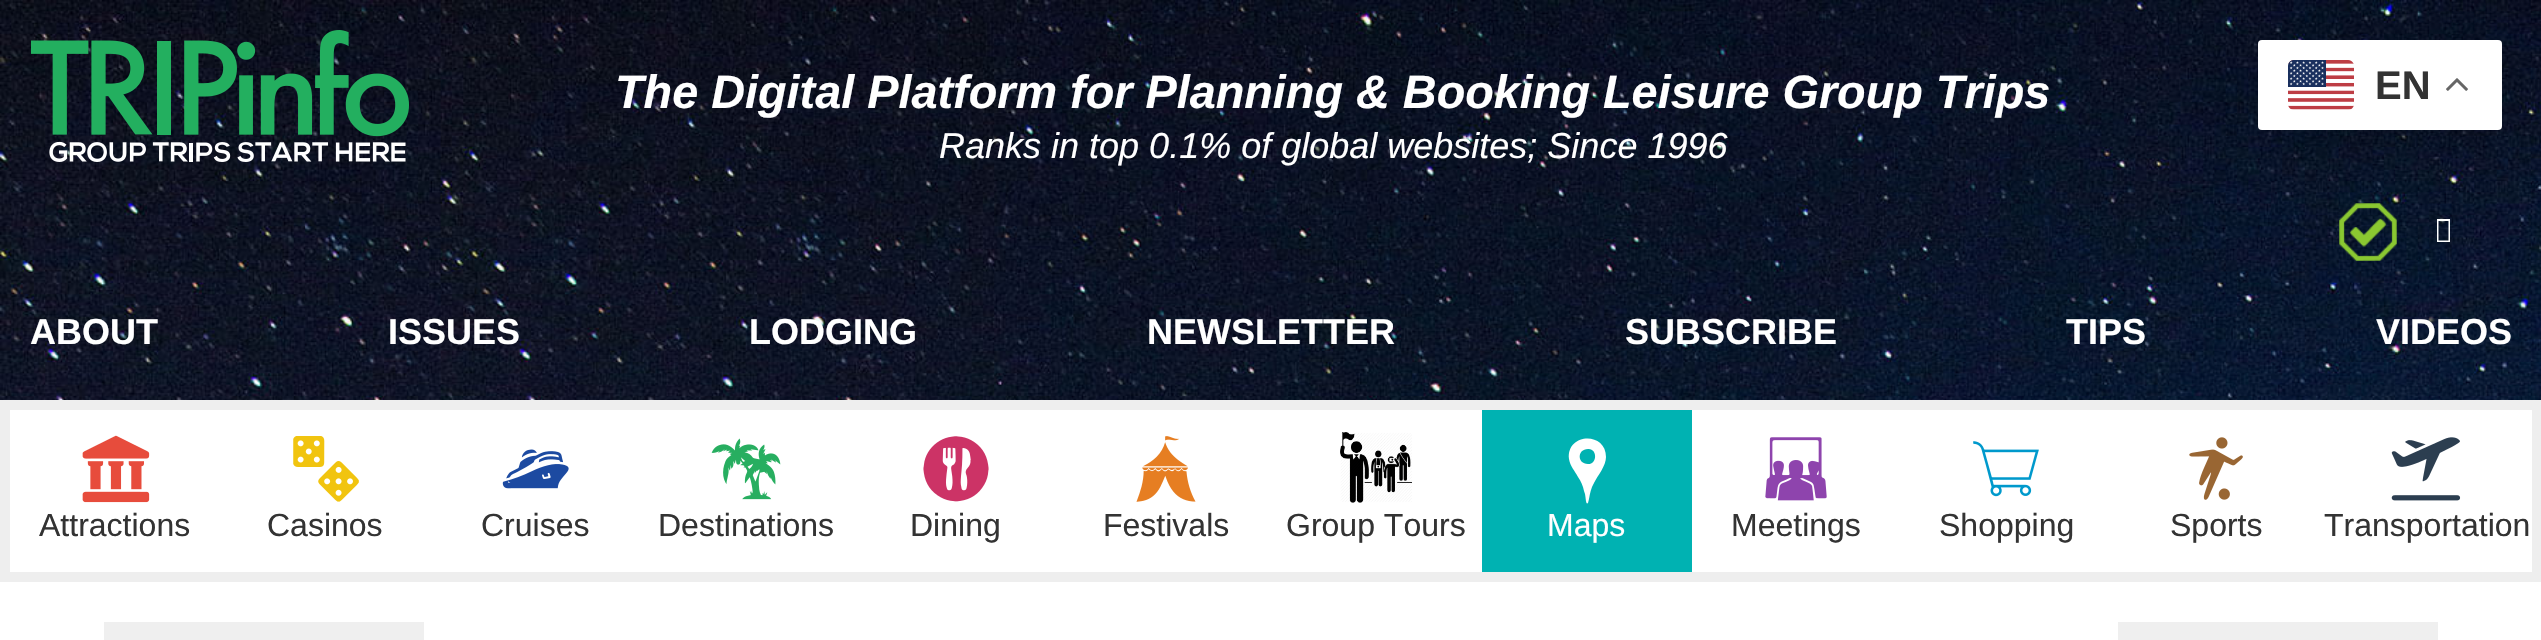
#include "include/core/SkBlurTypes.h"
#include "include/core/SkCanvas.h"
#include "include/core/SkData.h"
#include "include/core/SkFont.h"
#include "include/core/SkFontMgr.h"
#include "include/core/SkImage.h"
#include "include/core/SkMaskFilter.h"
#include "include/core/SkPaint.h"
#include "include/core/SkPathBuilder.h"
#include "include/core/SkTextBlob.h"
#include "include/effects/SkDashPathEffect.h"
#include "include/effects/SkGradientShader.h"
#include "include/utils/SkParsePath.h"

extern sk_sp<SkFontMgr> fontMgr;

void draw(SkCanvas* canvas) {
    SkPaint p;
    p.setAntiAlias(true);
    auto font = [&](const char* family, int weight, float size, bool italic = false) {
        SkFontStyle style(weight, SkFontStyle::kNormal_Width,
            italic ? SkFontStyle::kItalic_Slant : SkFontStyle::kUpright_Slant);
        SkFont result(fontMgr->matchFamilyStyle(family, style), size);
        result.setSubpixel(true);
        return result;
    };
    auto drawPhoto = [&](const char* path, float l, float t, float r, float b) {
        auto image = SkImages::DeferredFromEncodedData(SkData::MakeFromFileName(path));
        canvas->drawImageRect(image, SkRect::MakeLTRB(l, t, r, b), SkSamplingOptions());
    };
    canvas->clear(0xFFFFFFFF);
    drawPhoto("media/3.png", 0, 0, 2541, 400);
    p.setColor(0x26000000);
    p.setMaskFilter(SkMaskFilter::MakeBlur(kNormal_SkBlurStyle, 15));
    canvas->drawRoundRect(SkRect::MakeLTRB(2258, 50, 2502, 140), 4, 4, p);
    p.setMaskFilter(nullptr);
    p.setColor(0xFFFFFFFF);
    canvas->drawRoundRect(SkRect::MakeLTRB(2258, 40, 2502, 130), 4, 4, p);
    drawPhoto("media/1.png", 2288, 60, 2354, 110);
    auto font1 = font("Liberation Sans", 700, 40);
    p.setColor(0xFF333333);
    canvas->drawString("EN", 2375, 99, font1, p);
    drawPhoto("media/2.png", 2446, 78, 2468, 91);
    drawPhoto("media/4.png", 31, 30, 409, 162);
    auto font2 = font("Liberation Sans", 700, 46.8f, true);
    p.setColor(0xFFFFFFFF);
    canvas->drawString("The Digital Platform for Planning & Booking Leisure Group Trips", 615, 108, font2, p);
    auto font3 = font("Liberation Sans", 400, 36, true);
    canvas->drawString("Ranks in top 0.1% of global websites; Since 1996", 939, 158, font3, p);
    drawPhoto("media/5.png", 2339, 203, 2397, 261);
    canvas->drawPath(SkPathBuilder().moveTo(2437, 242).lineTo(2437, 219).lineTo(2450, 219).lineTo(2450, 242).close().moveTo(2438.5f, 240.5f).lineTo(2448.5f, 240.5f).lineTo(2448.5f, 221).lineTo(2438.5f, 221).close().detach(), p);
    auto font4 = font("Liberation Sans", 700, 36);
    {
        const struct { const char* s; float x, y; } items[] = {
            {"ABOUT", 30, 344},
            {"ISSUES", 388, 344},
            {"LODGING", 749, 344},
            {"NEWSLETTER", 1147, 344},
            {"SUBSCRIBE", 1625, 344},
            {"TIPS", 2066, 344},
            {"VIDEOS", 2376, 344},
        };
        for (auto [s, x, y] : items) {
            canvas->drawString(s, x, y, font4, p);
        }
    }
    p.setStyle(SkPaint::kStroke_Style);
    p.setStrokeWidth(10);
    p.setColor(0xFFEEEEEE);
    canvas->drawRect(SkRect::MakeLTRB(5, 405, 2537, 577), p);
    drawPhoto("media/6.png", 82, 435, 150, 503);
    auto font5 = font("Liberation Sans", 400, 32);
    p.setStyle(SkPaint::kFill_Style);
    p.setColor(0xFF333333);
    canvas->drawString("Attractions", 39, 536, font5, p);
    drawPhoto("media/7.png", 293, 436, 359, 502);
    canvas->drawString("Casinos", 267, 536, font5, p);
    drawPhoto("media/8.png", 502, 449, 569, 489);
    canvas->drawString("Cruises", 481, 536, font5, p);
    drawPhoto("media/9.png", 711, 438, 781, 500);
    canvas->drawString("Destinations", 658, 536, font5, p);
    drawPhoto("media/10.png", 923, 436, 989, 502);
    canvas->drawString("Dining", 910, 536, font5, p);
    drawPhoto("media/11.png", 1136, 436, 1196, 502);
    canvas->drawString("Festivals", 1103, 536, font5, p);
    drawPhoto("media/12.png", 1340, 432, 1412, 503);
    canvas->drawString("Group Tours", 1286, 536, font5, p);
    p.setColor(0xFF00B2B2);
    canvas->drawRect(SkRect::MakeLTRB(1482, 410, 1692, 572), p);
    p.setColor(0xFFFFFFFF);
    canvas->drawPath(SkPathBuilder().moveTo(1606, 457).cubicTo(1606, 466, 1598, 475, 1594, 483).cubicTo(1591, 488, 1590, 493, 1589, 499).lineTo(1588, 503).cubicTo(1586, 505, 1586, 500, 1585, 494).lineTo(1584, 491).cubicTo(1583, 486, 1581, 481, 1578, 477).cubicTo(1575, 471, 1570, 466, 1569, 459).cubicTo(1566, 433, 1606, 431, 1606, 457).close().moveTo(1588, 464).cubicTo(1598, 464, 1597, 448, 1588, 449).cubicTo(1577, 449, 1577, 464, 1588, 464).close().detach(), p);
    canvas->drawString("Maps", 1547, 536, font5, p);
    drawPhoto("media/13.png", 1765, 437, 1827, 501);
    p.setColor(0xFF333333);
    canvas->drawString("Meetings", 1731, 536, font5, p);
    drawPhoto("media/14.png", 1973, 441, 2039, 497);
    canvas->drawString("Shopping", 1939, 536, font5, p);
    drawPhoto("media/15.png", 2189, 437, 2243, 500);
    canvas->drawString("Sports", 2170, 536, font5, p);
    drawPhoto("media/16.png", 2391, 437, 2461, 501);
    canvas->drawString("Transportation", 2324, 536, font5, p);
    p.setColor(0xFFEFEFEF);
    canvas->drawRect(SkRect::MakeLTRB(104, 622, 424, 640), p);
    canvas->drawRect(SkRect::MakeLTRB(2118, 622, 2438, 640), p);
}
